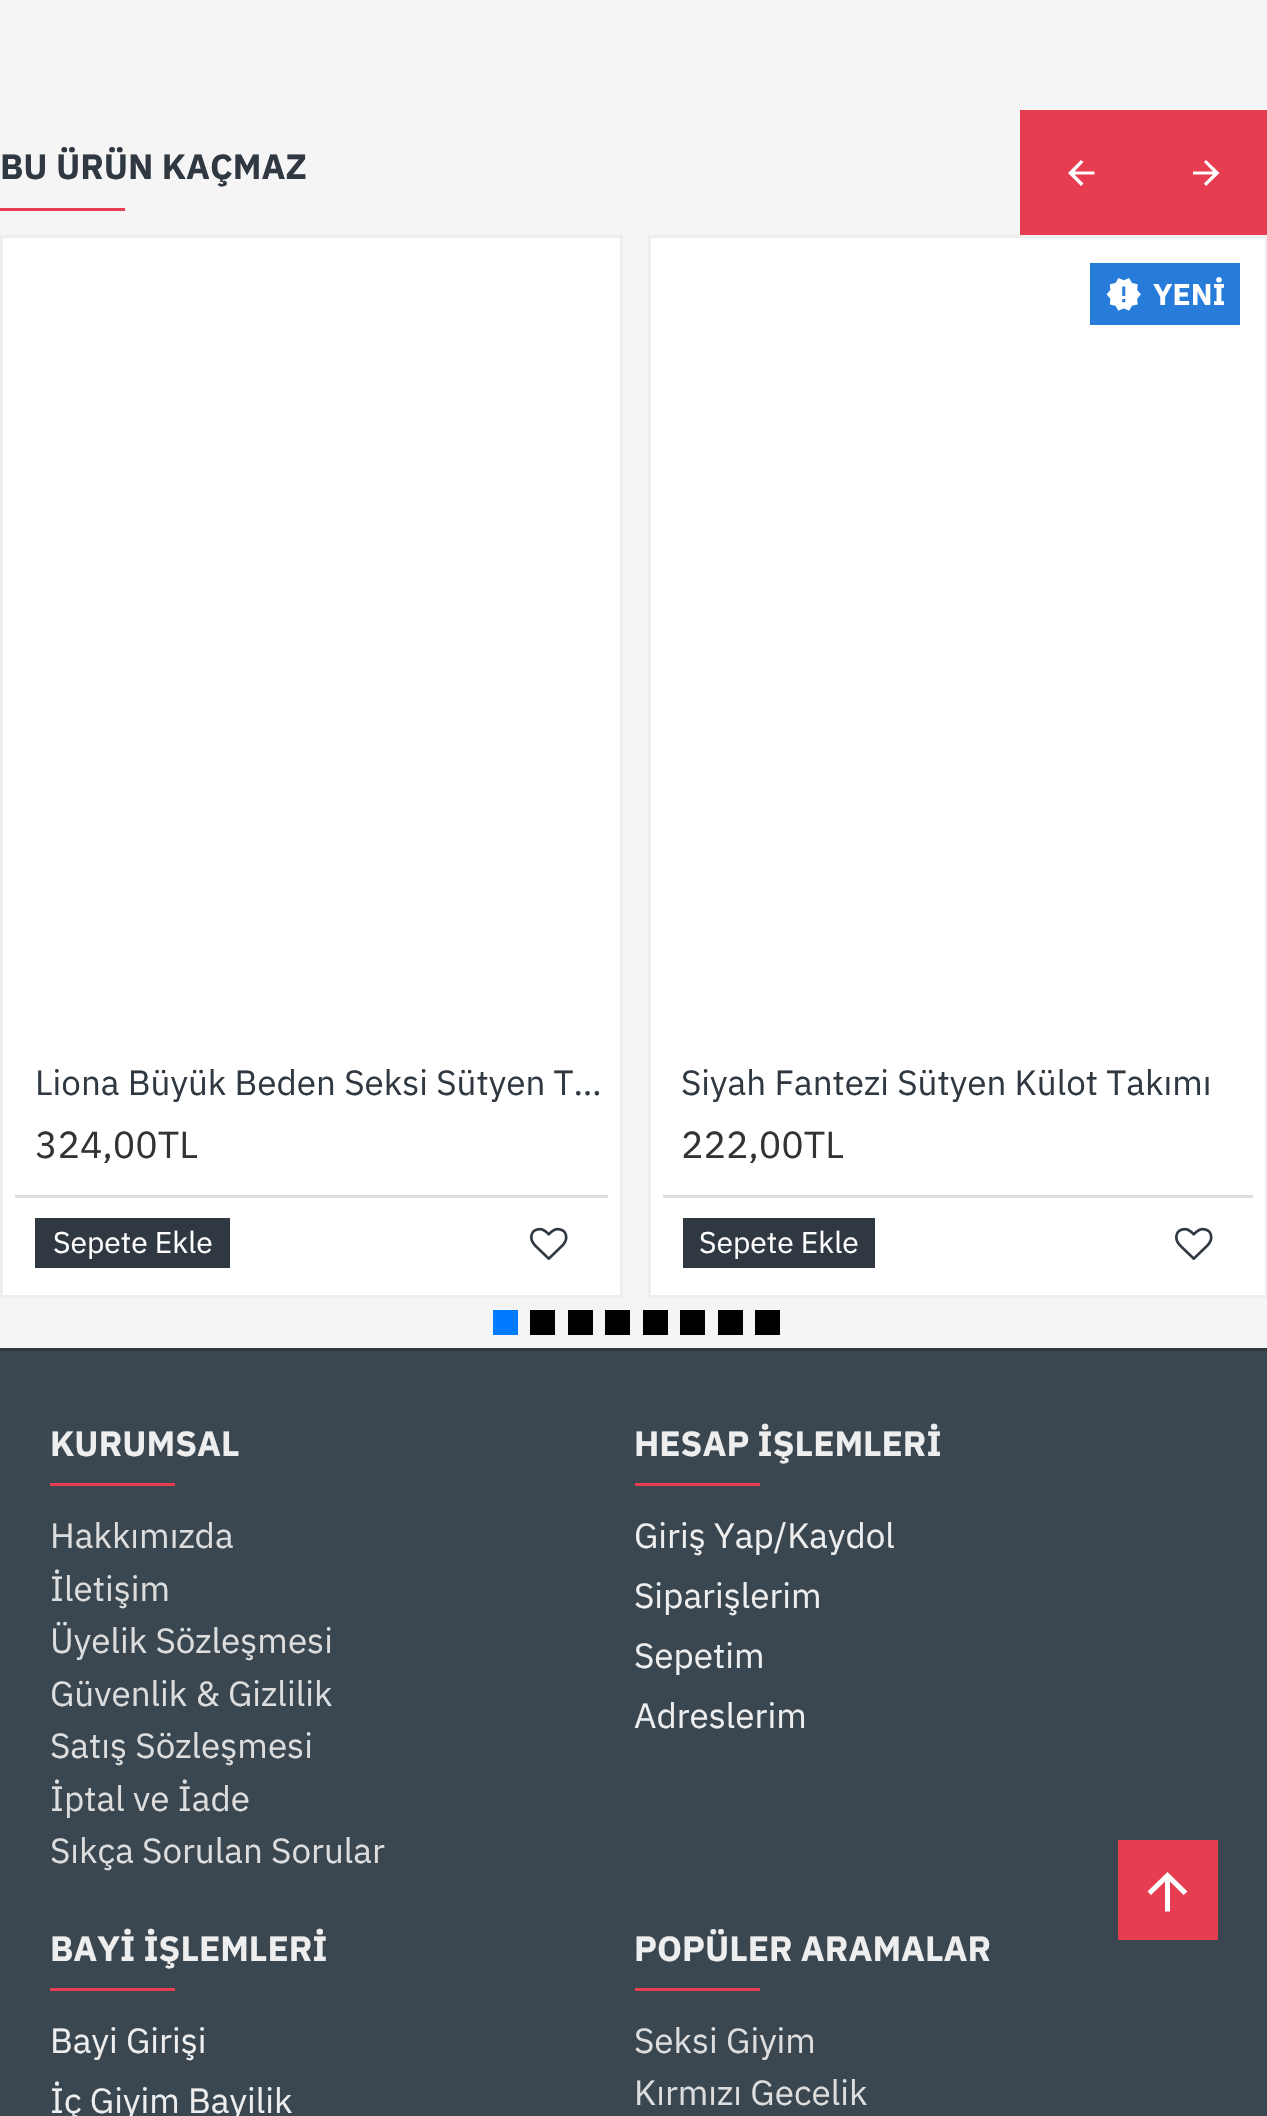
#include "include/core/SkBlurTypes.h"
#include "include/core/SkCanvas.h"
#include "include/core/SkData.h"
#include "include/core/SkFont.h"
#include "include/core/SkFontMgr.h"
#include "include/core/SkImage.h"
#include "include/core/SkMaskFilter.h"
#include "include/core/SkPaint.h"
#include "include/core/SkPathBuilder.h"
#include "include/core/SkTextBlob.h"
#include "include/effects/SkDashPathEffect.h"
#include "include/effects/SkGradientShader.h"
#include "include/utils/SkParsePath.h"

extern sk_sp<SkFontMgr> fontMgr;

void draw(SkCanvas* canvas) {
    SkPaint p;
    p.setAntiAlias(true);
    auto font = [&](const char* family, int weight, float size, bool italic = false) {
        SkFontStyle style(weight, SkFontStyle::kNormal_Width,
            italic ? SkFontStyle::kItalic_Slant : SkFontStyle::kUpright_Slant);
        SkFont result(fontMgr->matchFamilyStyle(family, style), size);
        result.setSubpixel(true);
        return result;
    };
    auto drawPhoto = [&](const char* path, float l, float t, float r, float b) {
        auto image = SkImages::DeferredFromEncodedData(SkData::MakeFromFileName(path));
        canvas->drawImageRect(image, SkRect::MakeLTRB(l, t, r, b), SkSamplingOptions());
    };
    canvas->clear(0xFFF5F5F5);
    auto font1 = font("IBM Plex Sans", 700, 35);
    p.setColor(0xFF303841);
    canvas->drawString("BU ÜRÜN KAÇMAZ", 0, 179, font1, p);
    p.setColor(0xFFE73D50);
    canvas->drawRect(SkRect::MakeLTRB(0, 208, 125, 211), p);
    canvas->drawRect(SkRect::MakeLTRB(1020, 110, 1267, 235), p);
    p.setColor(0xFFFFFFFF);
    canvas->drawPath(SkPathBuilder().moveTo(1094.5f, 171.5f).lineTo(1094.5f, 174.5f).lineTo(1074.5f, 174.5f).lineTo(1083.5f, 183.5f).lineTo(1081, 186).lineTo(1068, 173).lineTo(1081, 160).lineTo(1083.5f, 162).lineTo(1074.5f, 171.5f).close().detach(), p);
    canvas->drawPath(SkPathBuilder().moveTo(1206, 160).lineTo(1219.5f, 173).lineTo(1206, 186).lineTo(1204, 183.5f).lineTo(1213, 174.5f).lineTo(1193, 174.5f).lineTo(1193, 171.5f).lineTo(1213, 171.5f).lineTo(1204, 162).close().detach(), p);
    canvas->drawRect(SkRect::MakeLTRB(1.5f, 236.5f, 621.5f, 1296.5f), p);
    p.setStyle(SkPaint::kStroke_Style);
    p.setStrokeWidth(3);
    p.setColor(0xFFEEEEEE);
    canvas->drawRect(SkRect::MakeLTRB(1.5f, 236.5f, 621.5f, 1296.5f), p);
    auto font2 = font("IBM Plex Sans", 400, 35);
    p.setStyle(SkPaint::kFill_Style);
    p.setColor(0xFF303841);
    canvas->drawString("Liona Büyük Beden Seksi Sütyen T…", 35, 1095, font2, p);
    auto font3 = font("IBM Plex Sans", 400, 37.5f);
    p.setColor(0xFF333333);
    canvas->drawString("324,00TL", 35, 1158, font3, p);
    p.setColor(0xFFDDDDDD);
    canvas->drawRect(SkRect::MakeLTRB(15, 1195, 608, 1198), p);
    p.setColor(0xFF303841);
    canvas->drawRect(SkRect::MakeLTRB(35, 1218, 230, 1268), p);
    auto font4 = font("IBM Plex Sans", 400, 30);
    p.setColor(0xFFFFFFFF);
    canvas->drawString("Sepete Ekle", 53, 1253, font4, p);
    drawPhoto("media/1.png", 530, 1227, 568, 1260);
    canvas->drawRect(SkRect::MakeLTRB(649.5f, 236.5f, 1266.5f, 1296.5f), p);
    p.setStyle(SkPaint::kStroke_Style);
    p.setColor(0xFFEEEEEE);
    canvas->drawRect(SkRect::MakeLTRB(649.5f, 236.5f, 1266.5f, 1296.5f), p);
    p.setStyle(SkPaint::kFill_Style);
    p.setColor(0xFF277CD9);
    canvas->drawRect(SkRect::MakeLTRB(1090, 263, 1240, 325), p);
    drawPhoto("media/2.png", 1106, 278, 1141, 311);
    auto font5 = font("IBM Plex Sans", 700, 30);
    p.setColor(0xFFFFFFFF);
    canvas->drawString("YENİ", 1153, 305, font5, p);
    p.setColor(0xFF303841);
    canvas->drawString("Siyah Fantezi Sütyen Külot Takımı", 681, 1095, font2, p);
    p.setColor(0xFF333333);
    canvas->drawString("222,00TL", 681, 1158, font3, p);
    p.setColor(0xFFDDDDDD);
    canvas->drawRect(SkRect::MakeLTRB(663, 1195, 1253, 1198), p);
    p.setColor(0xFF303841);
    canvas->drawRect(SkRect::MakeLTRB(683, 1218, 875, 1268), p);
    p.setColor(0xFFFFFFFF);
    canvas->drawString("Sepete Ekle", 699, 1253, font4, p);
    drawPhoto("media/1.png", 1175, 1227, 1213, 1260);
    {
        const struct { float l, t, r, b; SkColor color; } items[] = {
            {493, 1310, 518, 1335, 0xFF007AFF},
            {530, 1310, 555, 1335, 0xFF000000},
            {568, 1310, 593, 1335, 0xFF000000},
            {605, 1310, 630, 1335, 0xFF000000},
            {643, 1310, 668, 1335, 0xFF000000},
            {680, 1310, 705, 1335, 0xFF000000},
            {718, 1310, 743, 1335, 0xFF000000},
            {755, 1310, 780, 1335, 0xFF000000},
            {0, 1351, 1267, 2116, 0xFF3A4750},
            {0, 1348, 1267, 1351, 0xFF303841},
        };
        for (auto [l, t, r, b, color] : items) {
            p.setColor(color);
            canvas->drawRect(SkRect::MakeLTRB(l, t, r, b), p);
        }
    }
    p.setColor(0xFFEEEEEE);
    canvas->drawString("KURUMSAL", 50, 1456, font1, p);
    p.setColor(0xFFE73D50);
    canvas->drawRect(SkRect::MakeLTRB(50, 1483, 175, 1486), p);
    p.setColor(0xFFDDDDDD);
    {
        const struct { const char* s; float x, y; } items[] = {
            {"Hakkımızda", 50, 1548},
            {"İletişim", 50, 1601},
            {"Üyelik Sözleşmesi", 50, 1653},
            {"Güvenlik & Gizlilik", 50, 1706},
            {"Satış Sözleşmesi", 50, 1758},
            {"İptal ve İade", 50, 1811},
            {"Sıkça Sorulan Sorular", 50, 1863},
        };
        for (auto [s, x, y] : items) {
            canvas->drawString(s, x, y, font2, p);
        }
    }
    p.setColor(0xFFEEEEEE);
    canvas->drawString("HESAP İŞLEMLERİ", 634, 1456, font1, p);
    p.setColor(0xFFE73D50);
    canvas->drawRect(SkRect::MakeLTRB(635, 1483, 760, 1486), p);
    p.setColor(0xFFEEEEEE);
    {
        const struct { const char* s; float x, y; } items[] = {
            {"Giriş Yap/Kaydol", 634, 1548},
            {"Siparişlerim", 634, 1608},
            {"Sepetim", 634, 1668},
            {"Adreslerim", 634, 1728},
        };
        for (auto [s, x, y] : items) {
            canvas->drawString(s, x, y, font2, p);
        }
    }
    canvas->drawString("BAYİ İŞLEMLERİ", 50, 1961, font1, p);
    p.setColor(0xFFE73D50);
    canvas->drawRect(SkRect::MakeLTRB(50, 1988, 175, 1991), p);
    p.setColor(0xFFEEEEEE);
    canvas->drawString("Bayi Girişi", 50, 2053, font2, p);
    canvas->drawString("İç Giyim Bayilik", 50, 2113, font2, p);
    canvas->drawString("POPÜLER ARAMALAR", 634, 1961, font1, p);
    p.setColor(0xFFE73D50);
    canvas->drawRect(SkRect::MakeLTRB(635, 1988, 760, 1991), p);
    p.setColor(0xFFDDDDDD);
    canvas->drawString("Seksi Giyim", 634, 2053, font2, p);
    canvas->drawString("Kırmızı Gecelik", 634, 2105, font2, p);
    p.setColor(0xFFE73D50);
    canvas->drawRect(SkRect::MakeLTRB(1118, 1840, 1218, 1940), p);
    p.setColor(0xFFFFFFFF);
    canvas->drawPath(SkPathBuilder().moveTo(1147.5f, 1891.5f).lineTo(1167.5f, 1872).lineTo(1187.5f, 1891.5f).lineTo(1183.5f, 1895).lineTo(1170, 1881.5f).lineTo(1170, 1911.5f).lineTo(1165, 1911.5f).lineTo(1165, 1881.5f).lineTo(1151, 1895).close().detach(), p);
}
